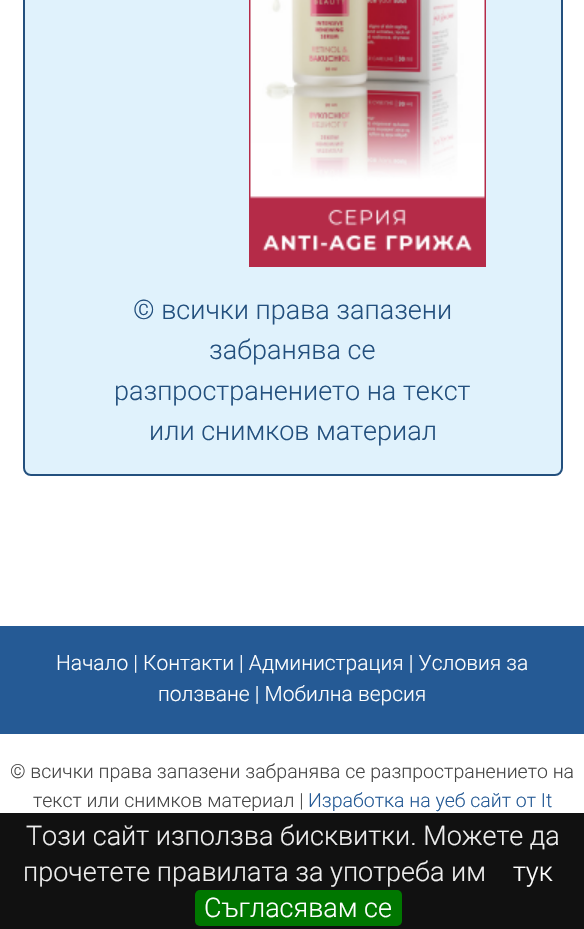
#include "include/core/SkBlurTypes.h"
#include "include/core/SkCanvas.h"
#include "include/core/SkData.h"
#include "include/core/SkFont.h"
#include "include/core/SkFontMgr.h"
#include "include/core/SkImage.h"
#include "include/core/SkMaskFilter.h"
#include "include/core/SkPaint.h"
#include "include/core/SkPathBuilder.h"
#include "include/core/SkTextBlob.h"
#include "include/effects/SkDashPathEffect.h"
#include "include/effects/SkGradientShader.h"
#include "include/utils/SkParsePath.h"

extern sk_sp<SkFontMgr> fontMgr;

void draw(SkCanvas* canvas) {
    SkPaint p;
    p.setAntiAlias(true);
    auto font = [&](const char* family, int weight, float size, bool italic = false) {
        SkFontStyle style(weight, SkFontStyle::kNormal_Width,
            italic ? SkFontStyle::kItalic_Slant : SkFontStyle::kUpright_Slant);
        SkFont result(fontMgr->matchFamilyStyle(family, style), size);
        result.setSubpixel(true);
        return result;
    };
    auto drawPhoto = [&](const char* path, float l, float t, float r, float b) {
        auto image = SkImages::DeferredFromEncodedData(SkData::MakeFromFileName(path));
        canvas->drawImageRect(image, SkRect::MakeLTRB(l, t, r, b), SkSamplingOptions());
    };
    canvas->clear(0xFFFFFFFF);
    p.setColor(0xFFE0F2FC);
    canvas->drawRoundRect(SkRect::MakeLTRB(24, -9, 562, 475), 7, 7, p);
    p.setStyle(SkPaint::kStroke_Style);
    p.setStrokeWidth(2);
    p.setColor(0xFF23507E);
    canvas->drawRoundRect(SkRect::MakeLTRB(24, -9, 562, 475), 7, 7, p);
    drawPhoto("media/1.png", 249, 0, 486, 267);
    auto font1 = font("Roboto", 300, 27);
    p.setStyle(SkPaint::kFill_Style);
    {
        const struct { const char* s; float x, y; } items[] = {
            {"© всички права запазени", 133, 319},
            {"забранява се", 209, 359},
            {"разпространението на текст", 114, 400},
            {"или снимков материал", 149, 440},
        };
        for (auto [s, x, y] : items) {
            canvas->drawString(s, x, y, font1, p);
        }
    }
    p.setColor(0xFF255A95);
    canvas->drawRect(SkRect::MakeLTRB(0, 626, 584, 734), p);
    auto font2 = font("Roboto", 300, 21);
    p.setColor(0xFFFFFFFF);
    canvas->drawString("Начало | Контакти | Администрация | Условия за", 56, 670, font2, p);
    canvas->drawString("ползване | Мобилна версия", 158, 701, font2, p);
    auto font3 = font("Roboto", 300, 19.5f);
    p.setColor(0xFF464646);
    canvas->drawString("© всички права запазени забранява се разпространението на", 10, 778, font3, p);
    canvas->drawString("текст или снимков материал |", 33, 807, font3, p);
    p.setColor(0xFF255A95);
    canvas->drawString("Изработка на уеб сайт от It", 308, 807, font3, p);
    p.setColor(0xFF111111);
    canvas->drawRect(SkRect::MakeLTRB(0, 813, 584, 929), p);
    p.setColor(0xFFEEEEEE);
    canvas->drawString("Този сайт използва бисквитки. Можете да", 26, 845, font1, p);
    canvas->drawString("прочетете правилата за употреба им", 23, 881, font1, p);
    p.setColor(0xFFFFFFFF);
    canvas->drawString("тук", 513, 881, font1, p);
    p.setColor(0xFF007700);
    canvas->drawRoundRect(SkRect::MakeLTRB(195, 890, 402, 926), 5, 5, p);
    p.setColor(0xFFFFFFFF);
    canvas->drawString("Съгласявам се", 204, 917, font1, p);
}
